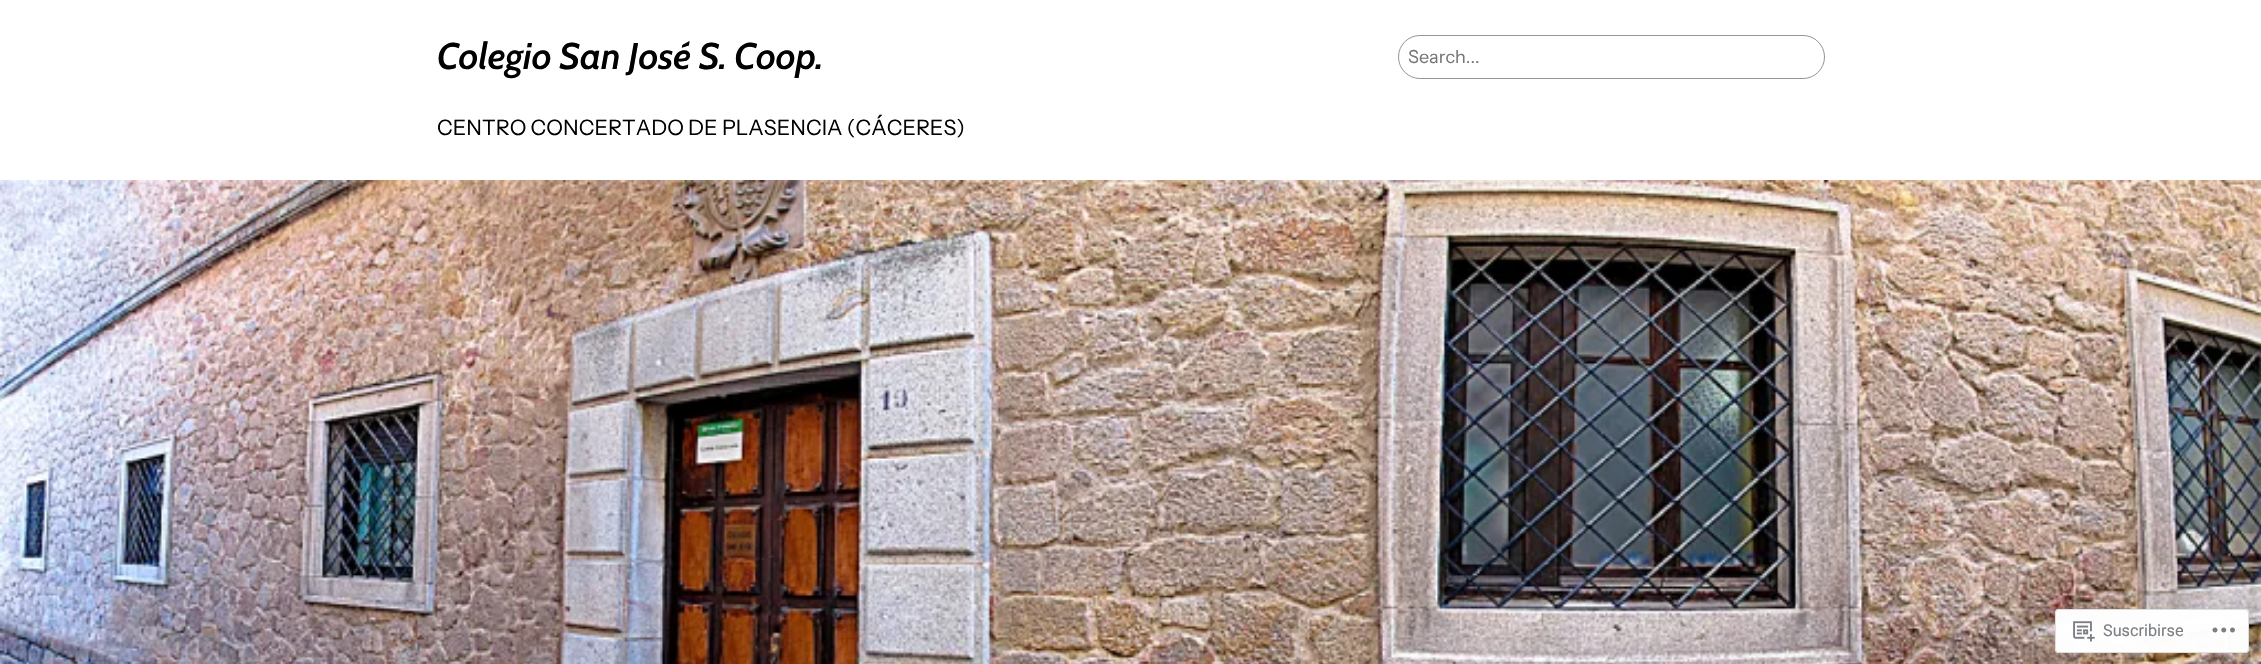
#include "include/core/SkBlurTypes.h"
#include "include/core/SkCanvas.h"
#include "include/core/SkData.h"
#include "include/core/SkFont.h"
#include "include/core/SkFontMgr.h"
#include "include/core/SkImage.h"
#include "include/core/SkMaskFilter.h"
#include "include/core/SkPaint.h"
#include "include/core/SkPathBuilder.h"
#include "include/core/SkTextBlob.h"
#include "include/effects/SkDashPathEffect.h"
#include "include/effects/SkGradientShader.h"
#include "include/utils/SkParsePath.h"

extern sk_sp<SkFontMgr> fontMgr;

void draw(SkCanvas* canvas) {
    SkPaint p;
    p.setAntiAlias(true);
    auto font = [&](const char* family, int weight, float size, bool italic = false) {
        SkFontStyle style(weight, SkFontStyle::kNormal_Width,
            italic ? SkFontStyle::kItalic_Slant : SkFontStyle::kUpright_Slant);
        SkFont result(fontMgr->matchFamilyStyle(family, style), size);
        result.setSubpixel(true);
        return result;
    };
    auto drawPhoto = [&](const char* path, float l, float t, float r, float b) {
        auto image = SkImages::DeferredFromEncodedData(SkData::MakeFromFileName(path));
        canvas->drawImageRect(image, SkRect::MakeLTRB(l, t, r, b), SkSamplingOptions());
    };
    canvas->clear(0xFFFFFFFF);
    auto font1 = font("Cabin", 600, 37, true);
    p.setColor(0xFF000000);
    canvas->drawString("Colegio San José S. Coop.", 437, 69, font1, p);
    auto font2 = font("Instrument Sans", 400, 21.25f);
    canvas->drawString("CENTRO CONCERTADO DE PLASENCIA (CÁCERES)", 437, 135, font2, p);
    p.setStyle(SkPaint::kStroke_Style);
    p.setStrokeWidth(1);
    p.setColor(0xFF949494);
    canvas->drawRoundRect(SkRect::MakeLTRB(1398.5f, 35.5f, 1824.5f, 78.5f), 21.5f, 21.5f, p);
    auto font3 = font("Instrument Sans", 400, 18);
    p.setStyle(SkPaint::kFill_Style);
    p.setColor(0xFF757575);
    canvas->drawString("Search...", 1408, 63, font3, p);
    drawPhoto("media/1.png", 0, 180, 2261, 664);
    p.setColor(0xFAFFFFFF);
    canvas->drawRoundRect(SkRect::MakeLTRB(2055, 609, 2249, 653), 4, 4, p);
    p.setStyle(SkPaint::kStroke_Style);
    p.setColor(0xFADCDCDE);
    canvas->drawRoundRect(SkRect::MakeLTRB(2055.5f, 609.5f, 2248.5f, 652.5f), 3.5f, 3.5f, p);
    drawPhoto("media/2.png", 2073, 621, 2095, 642);
    auto font4 = font("Roboto", 400, 16.25f);
    p.setStyle(SkPaint::kFill_Style);
    p.setColor(0xFF7B7F84);
    canvas->drawString("Suscribirse", 2103, 636, font4, p);
    drawPhoto("media/3.png", 2212, 627, 2235, 633);
}
